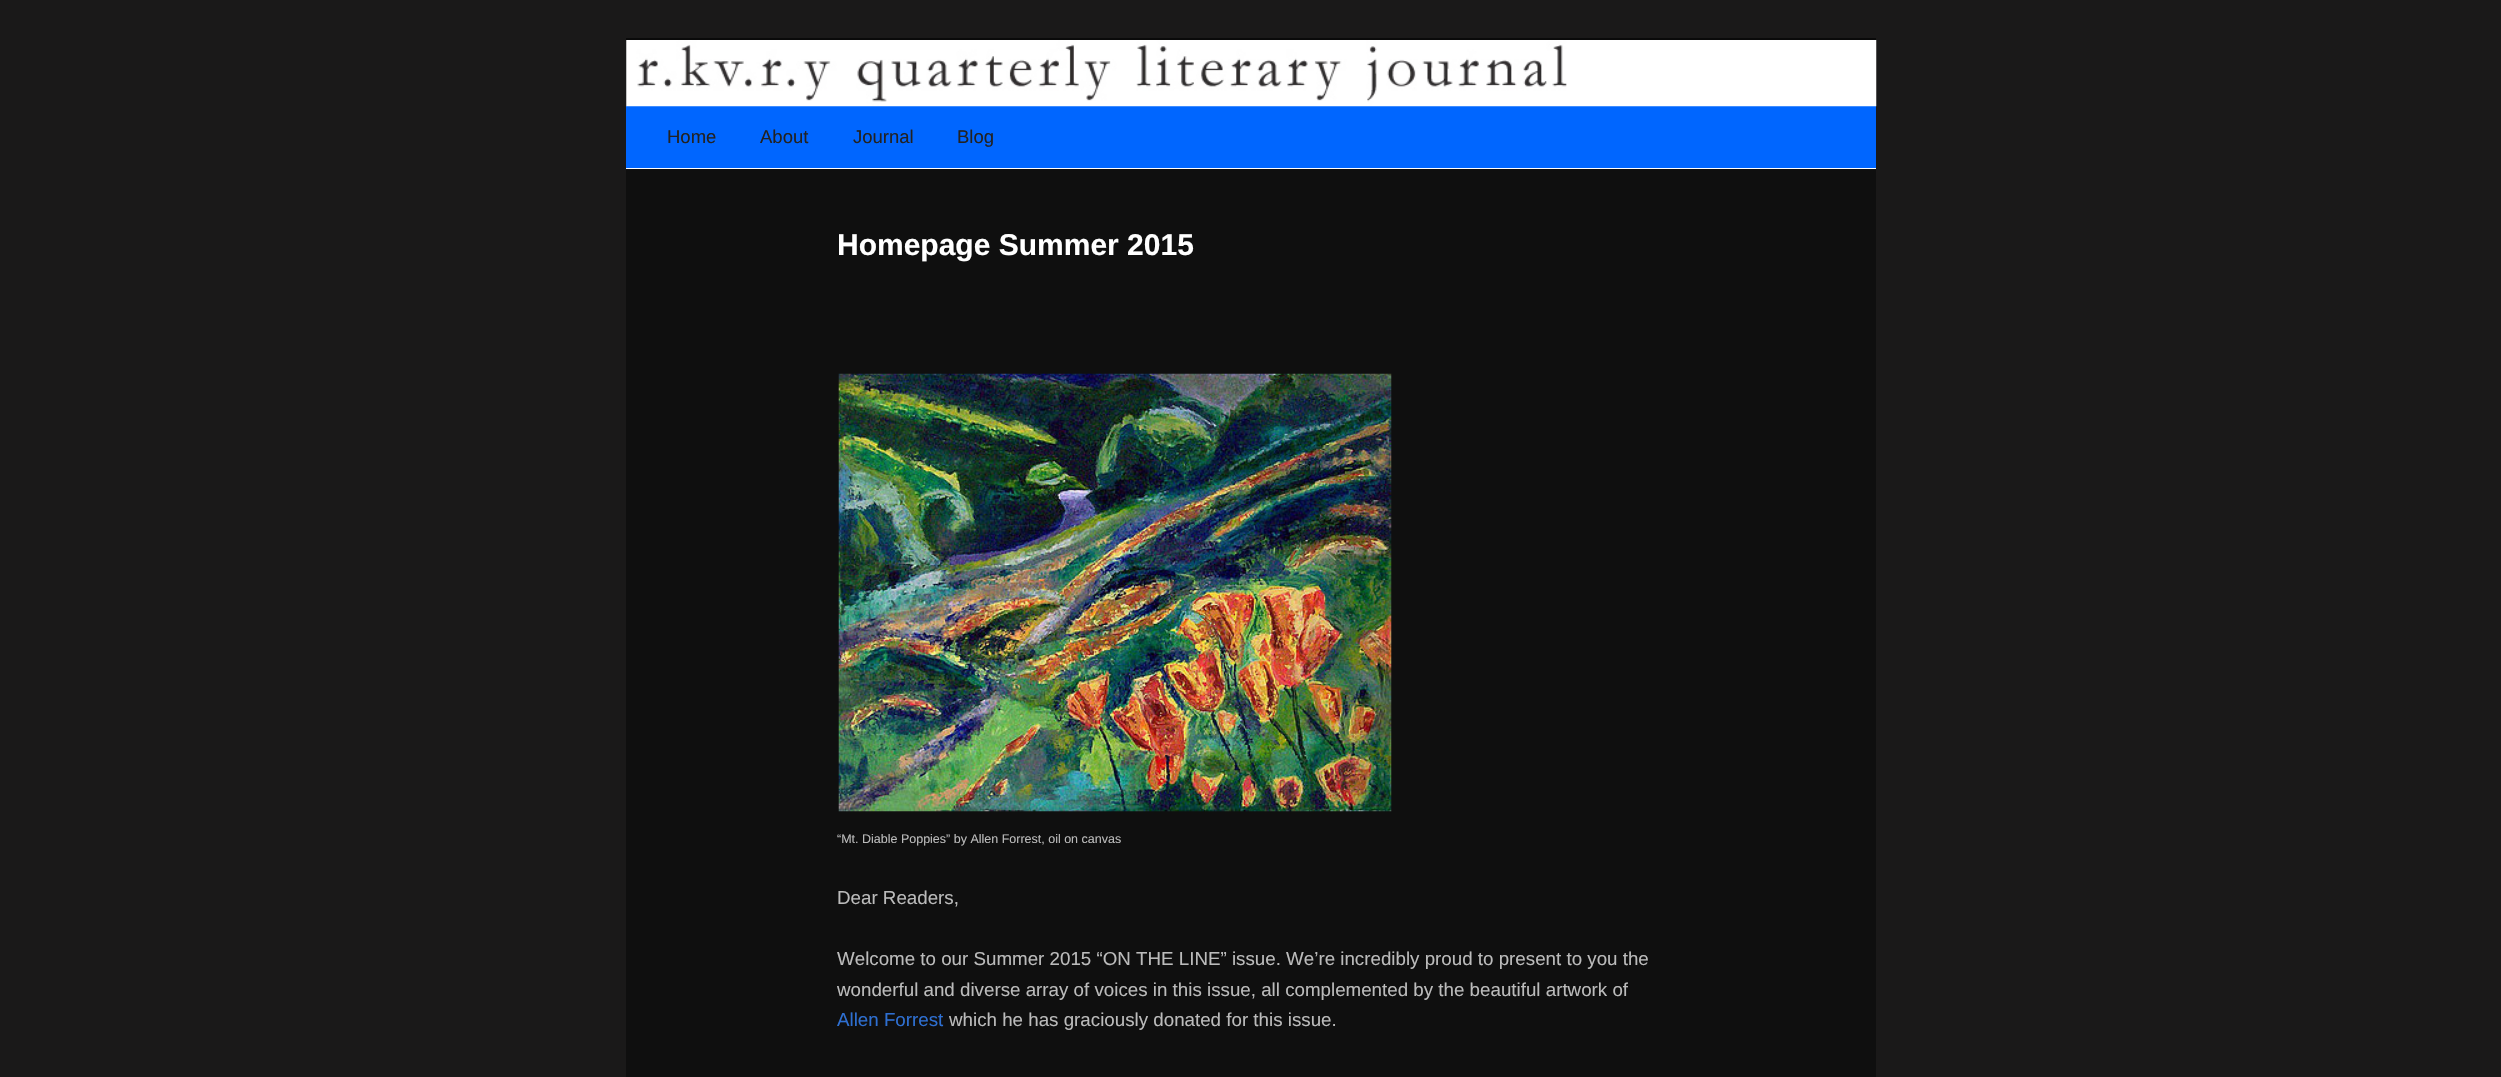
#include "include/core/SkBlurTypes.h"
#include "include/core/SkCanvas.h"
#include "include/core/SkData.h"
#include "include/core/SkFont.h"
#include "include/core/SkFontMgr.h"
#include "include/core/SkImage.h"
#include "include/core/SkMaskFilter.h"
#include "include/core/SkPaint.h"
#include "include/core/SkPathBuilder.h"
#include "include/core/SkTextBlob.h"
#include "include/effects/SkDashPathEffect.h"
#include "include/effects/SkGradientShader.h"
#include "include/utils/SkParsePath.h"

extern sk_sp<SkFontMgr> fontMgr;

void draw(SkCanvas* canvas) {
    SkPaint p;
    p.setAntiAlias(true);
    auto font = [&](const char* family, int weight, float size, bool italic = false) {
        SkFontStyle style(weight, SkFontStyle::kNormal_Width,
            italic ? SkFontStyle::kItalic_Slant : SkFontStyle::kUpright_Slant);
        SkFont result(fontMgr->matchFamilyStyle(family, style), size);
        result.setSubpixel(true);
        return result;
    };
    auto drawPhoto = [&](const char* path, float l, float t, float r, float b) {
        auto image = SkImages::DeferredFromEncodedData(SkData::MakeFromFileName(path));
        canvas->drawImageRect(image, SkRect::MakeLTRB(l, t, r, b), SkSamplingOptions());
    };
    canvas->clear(0xFF1A1919);
    {
        const struct { float l, t, r, b; SkColor color; } items[] = {
            {626, 41, 1876, 1077, 0xFF0F0F0F},
            {626, 38, 1876, 41, 0xFF0A0A0A},
            {626, 106, 1876, 168, 0xFF0066FF},
        };
        for (auto [l, t, r, b, color] : items) {
            p.setColor(color);
            canvas->drawRect(SkRect::MakeLTRB(l, t, r, b), p);
        }
    }
    drawPhoto("media/1.png", 626, 40, 1877, 107);
    p.setColor(0xFFFFFFFF);
    canvas->drawRect(SkRect::MakeLTRB(626, 168, 1876, 169), p);
    auto font1 = font("Liberation Sans", 400, 18.5f);
    p.setColor(0xFF222222);
    {
        const struct { const char* s; float x, y; } items[] = {
            {"Home", 667, 143},
            {"About", 760, 143},
            {"Journal", 853, 143},
            {"Blog", 957, 143},
        };
        for (auto [s, x, y] : items) {
            canvas->drawString(s, x, y, font1, p);
        }
    }
    auto font2 = font("Liberation Sans", 700, 30);
    p.setColor(0xFFFFFFFF);
    canvas->drawString("Homepage Summer 2015", 837, 255, font2, p);
    drawPhoto("media/2.png", 838, 373, 1392, 812);
    auto font3 = font("Liberation Sans", 400, 12.5f);
    p.setColor(0xFFBBBBBB);
    canvas->drawString("“Mt. Diable Poppies” by Allen Forrest, oil on canvas", 837, 843, font3, p);
    auto font4 = font("Liberation Sans", 400, 18.75f);
    {
        const struct { const char* s; float x, y; } items[] = {
            {"Dear Readers,", 837, 904},
            {"Welcome to our Summer 2015 “ON THE LINE” issue. We’re incredibly proud to present to you the", 837, 965},
            {"wonderful and diverse array of voices in this issue, all complemented by the beautiful artwork of", 837, 996},
        };
        for (auto [s, x, y] : items) {
            canvas->drawString(s, x, y, font4, p);
        }
    }
    p.setColor(0xFF2E6FD1);
    canvas->drawString("Allen Forrest", 837, 1026, font4, p);
    p.setColor(0xFFBBBBBB);
    canvas->drawString("which he has graciously donated for this issue.", 949, 1026, font4, p);
}
